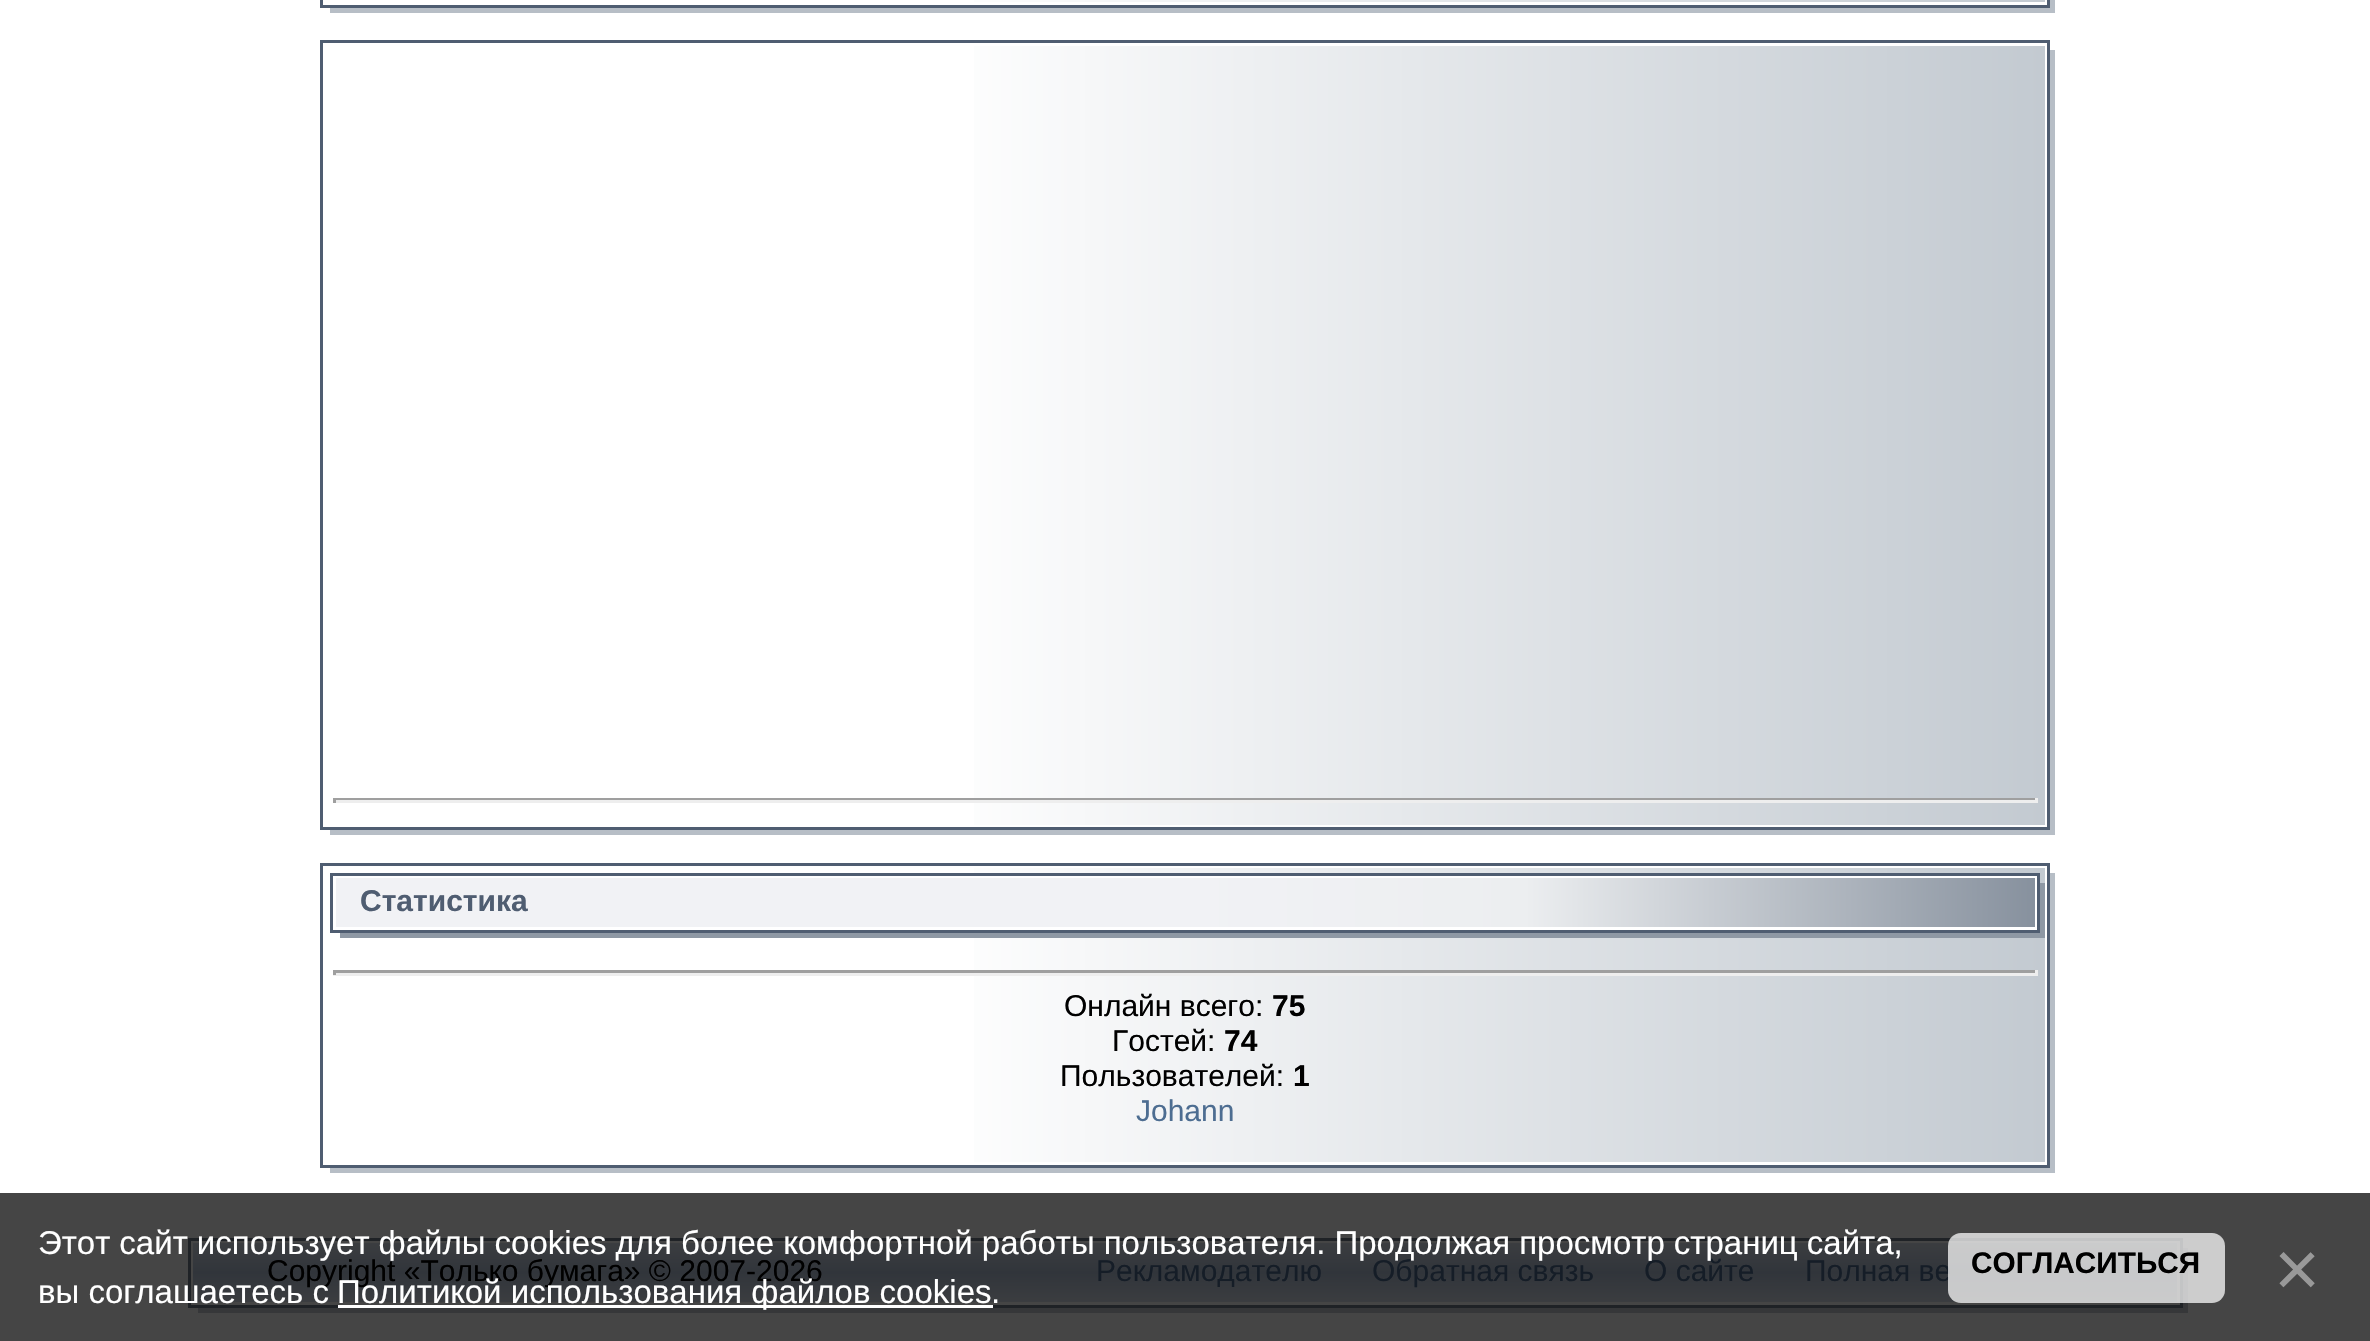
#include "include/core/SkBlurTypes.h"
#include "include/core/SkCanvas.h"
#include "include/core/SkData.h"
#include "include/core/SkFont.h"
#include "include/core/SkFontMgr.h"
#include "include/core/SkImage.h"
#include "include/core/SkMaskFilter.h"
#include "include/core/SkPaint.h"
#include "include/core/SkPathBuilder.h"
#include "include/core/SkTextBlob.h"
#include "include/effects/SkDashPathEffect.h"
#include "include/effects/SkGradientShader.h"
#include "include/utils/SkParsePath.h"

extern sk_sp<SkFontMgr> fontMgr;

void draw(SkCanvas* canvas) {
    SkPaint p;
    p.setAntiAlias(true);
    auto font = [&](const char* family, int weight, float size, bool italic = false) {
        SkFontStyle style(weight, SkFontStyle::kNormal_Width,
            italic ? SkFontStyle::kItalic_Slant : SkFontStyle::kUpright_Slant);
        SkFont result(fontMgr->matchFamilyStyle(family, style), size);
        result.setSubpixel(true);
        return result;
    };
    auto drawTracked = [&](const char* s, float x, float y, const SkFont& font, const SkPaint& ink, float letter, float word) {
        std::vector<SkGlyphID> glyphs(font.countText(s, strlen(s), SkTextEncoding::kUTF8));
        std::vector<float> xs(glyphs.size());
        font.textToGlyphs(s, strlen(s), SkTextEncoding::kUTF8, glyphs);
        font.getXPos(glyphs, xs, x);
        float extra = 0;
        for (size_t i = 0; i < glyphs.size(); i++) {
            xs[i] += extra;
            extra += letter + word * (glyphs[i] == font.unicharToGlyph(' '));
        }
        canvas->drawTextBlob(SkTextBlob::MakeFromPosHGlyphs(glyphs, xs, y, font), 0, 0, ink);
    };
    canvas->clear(0xFFFFFFFF);
    p.setColor(0xFF454545);
    canvas->drawRect(SkRect::MakeLTRB(0, 1193, 2370, 1341), p);
    p.setColor(0xFFB7BEC6);
    canvas->drawPath(SkPathBuilder().moveTo(330, 5).lineTo(330, 13).lineTo(2055, 13).lineTo(2055, -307).lineTo(2048, -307).lineTo(2048, 5).close().detach(), p);
    {
        const SkColor colors[] = {0xFFFFFFFF, 0xFFC3CAD1};
        const float stops[] = {0.35f, 1};
        const SkPoint ends[] = {{325, -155}, {2045, -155}};
        p.setShader(SkGradientShader::MakeLinear(ends, colors, stops, 2, SkTileMode::kClamp));
        p.setAlpha(255);
    }
    canvas->drawRect(SkRect::MakeLTRB(974, 0, 2045, 2), p);
    p.setStyle(SkPaint::kStroke_Style);
    p.setStrokeWidth(3);
    p.setShader(nullptr);
    p.setColor(0xFF4F5D71);
    canvas->drawRect(SkRect::MakeLTRB(321.5f, -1.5f, 2048.5f, 6.5f), p);
    p.setStyle(SkPaint::kFill_Style);
    p.setColor(0xFFB7BEC6);
    canvas->drawPath(SkPathBuilder().moveTo(330, 828).lineTo(330, 835).lineTo(2055, 835).lineTo(2055, 50).lineTo(2048, 50).lineTo(2048, 828).close().detach(), p);
    {
        const SkColor colors[] = {0xFFFFFFFF, 0xFFC3CAD1};
        const float stops[] = {0.35f, 1};
        const SkPoint ends[] = {{325, 435}, {2045, 435}};
        p.setShader(SkGradientShader::MakeLinear(ends, colors, stops, 2, SkTileMode::kClamp));
        p.setAlpha(255);
    }
    canvas->drawRect(SkRect::MakeLTRB(974, 46, 2045, 825), p);
    p.setStyle(SkPaint::kStroke_Style);
    p.setShader(nullptr);
    p.setColor(0xFF4F5D71);
    canvas->drawRect(SkRect::MakeLTRB(321.5f, 41.5f, 2048.5f, 828.5f), p);
    p.setStyle(SkPaint::kFill_Style);
    {
        const struct { float l, t, r, b; SkColor color; } items[] = {
            {333, 798, 2038, 800, 0xFF9F9F9F},
            {2035, 798, 2038, 803, 0xFFEEEEEE},
            {333, 800, 2038, 803, 0xFFEEEEEE},
            {333, 798, 336, 803, 0xFF9F9F9F},
        };
        for (auto [l, t, r, b, color] : items) {
            p.setColor(color);
            canvas->drawRect(SkRect::MakeLTRB(l, t, r, b), p);
        }
    }
    p.setColor(0xFFB7BEC6);
    canvas->drawPath(SkPathBuilder().moveTo(330, 1165).lineTo(330, 1173).lineTo(2055, 1173).lineTo(2055, 873).lineTo(2048, 873).lineTo(2048, 1165).close().detach(), p);
    {
        const SkColor colors[] = {0xFFFFFFFF, 0xFFC3CAD1};
        const float stops[] = {0.35f, 1};
        const SkPoint ends[] = {{325, 1015}, {2045, 1015}};
        p.setShader(SkGradientShader::MakeLinear(ends, colors, stops, 2, SkTileMode::kClamp));
        p.setAlpha(255);
    }
    canvas->drawRect(SkRect::MakeLTRB(974, 868, 2045, 1162), p);
    p.setShader(nullptr);
    p.setColor(0xFF8E98A4);
    canvas->drawPath(SkPathBuilder().moveTo(340, 930).lineTo(340, 938).lineTo(2045, 938).lineTo(2045, 883).lineTo(2038, 883).lineTo(2038, 930).close().detach(), p);
    {
        const SkColor colors[] = {0xFFF1F2F5, 0xFFF1F2F5, 0xFFECEEF0, 0xFF87919E};
        const float stops[] = {0, 0.5f, 0.7f, 1};
        const SkPoint ends[] = {{335, 903}, {2035, 903}};
        p.setShader(SkGradientShader::MakeLinear(ends, colors, stops, 4, SkTileMode::kClamp));
        p.setAlpha(255);
    }
    canvas->drawRect(SkRect::MakeLTRB(336, 878, 2035, 927), p);
    p.setStyle(SkPaint::kStroke_Style);
    p.setShader(nullptr);
    p.setColor(0xFFFFFFFF);
    canvas->drawRect(SkRect::MakeLTRB(334.5f, 876.5f, 2036.5f, 928.5f), p);
    p.setColor(0xFF4F5D71);
    canvas->drawRect(SkRect::MakeLTRB(331.5f, 874.5f, 2038.5f, 931.5f), p);
    canvas->drawRect(SkRect::MakeLTRB(321.5f, 864.5f, 2048.5f, 1166.5f), p);
    auto font1 = font("Liberation Sans", 700, 30);
    p.setStyle(SkPaint::kFill_Style);
    canvas->drawString("Статистика", 360, 911, font1, p);
    {
        const struct { float l, t, r, b; SkColor color; } items[] = {
            {333, 970, 2038, 973, 0xFF9F9F9F},
            {2035, 970, 2038, 975, 0xFFEEEEEE},
            {333, 973, 2038, 976, 0xFFEEEEEE},
            {333, 970, 336, 975, 0xFF9F9F9F},
        };
        for (auto [l, t, r, b, color] : items) {
            p.setColor(color);
            canvas->drawRect(SkRect::MakeLTRB(l, t, r, b), p);
        }
    }
    auto font2 = font("Liberation Sans", 400, 30);
    p.setColor(0xFF000000);
    canvas->drawString("Онлайн всего:", 1064, 1016, font2, p);
    canvas->drawString("75", 1272, 1016, font1, p);
    canvas->drawString("Гостей:", 1112, 1051, font2, p);
    canvas->drawString("74", 1224, 1051, font1, p);
    canvas->drawString("Пользователей:", 1060, 1086, font2, p);
    canvas->drawString("1", 1293, 1086, font1, p);
    p.setColor(0xFF4D6D91);
    canvas->drawString("Johann", 1136, 1121, font2, p);
    p.setColor(0xFF363739);
    canvas->drawPath(SkPathBuilder().moveTo(198, 1305).lineTo(198, 1313).lineTo(2188, 1313).lineTo(2188, 1248).lineTo(2180, 1248).lineTo(2180, 1305).close().detach(), p);
    {
        const SkColor colors[] = {0xFF3B3D40, 0xFF31353B, 0xFF3B3D40};
        const float stops[] = {0, 0.5f, 1};
        const SkPoint ends[] = {{1185, 1242}, {1185, 1303}};
        p.setShader(SkGradientShader::MakeLinear(ends, colors, stops, 3, SkTileMode::kClamp));
        p.setAlpha(255);
    }
    canvas->drawRect(SkRect::MakeLTRB(193, 1243, 2177, 1302), p);
    p.setStyle(SkPaint::kStroke_Style);
    p.setShader(nullptr);
    p.setColor(0xFF1F2226);
    canvas->drawRect(SkRect::MakeLTRB(189.5f, 1239.5f, 2181.5f, 1306.5f), p);
    p.setStyle(SkPaint::kFill_Style);
    p.setColor(0xFF000000);
    canvas->drawString("Copyright «Только бумага» © 2007-2026", 267, 1281, font2, p);
    p.setColor(0xFF151D27);
    {
        const struct { const char* s; float x, y; } items[] = {
            {"Рекламодателю", 1096, 1281},
            {"Обратная связь", 1372, 1281},
            {"О сайте", 1644, 1281},
            {"Полная ве", 1805, 1281},
        };
        for (auto [s, x, y] : items) {
            canvas->drawString(s, x, y, font2, p);
        }
    }
    auto font3 = font("Liberation Sans", 400, 33);
    p.setColor(0xFFFFFFFF);
    drawTracked("Этот сайт использует файлы cookies для более комфортной работы пользователя. Продолжая просмотр страниц сайта,", 38, 1254, font3, p, 0, -0.1f);
    canvas->drawString("вы соглашаетесь с", 38, 1303, font3, p);
    canvas->drawRect(SkRect::MakeLTRB(338, 1305, 993, 1308), p);
    canvas->drawString("Политикой использования файлов cookies", 337, 1303, font3, p);
    canvas->drawString(".", 991, 1303, font3, p);
    p.setColor(0xBAFFFFFF);
    canvas->drawRoundRect(SkRect::MakeLTRB(1948, 1233, 2225, 1303), 13, 13, p);
    auto font4 = font("Liberation Sans", 700, 29.75f);
    p.setColor(0xFF000000);
    canvas->drawString("СОГЛАСИТЬСЯ", 1971, 1273, font4, p);
    auto font5 = font("Liberation Sans", 400, 79);
    p.setColor(0xFF999999);
    canvas->drawString("×", 2274, 1296, font5, p);
}
